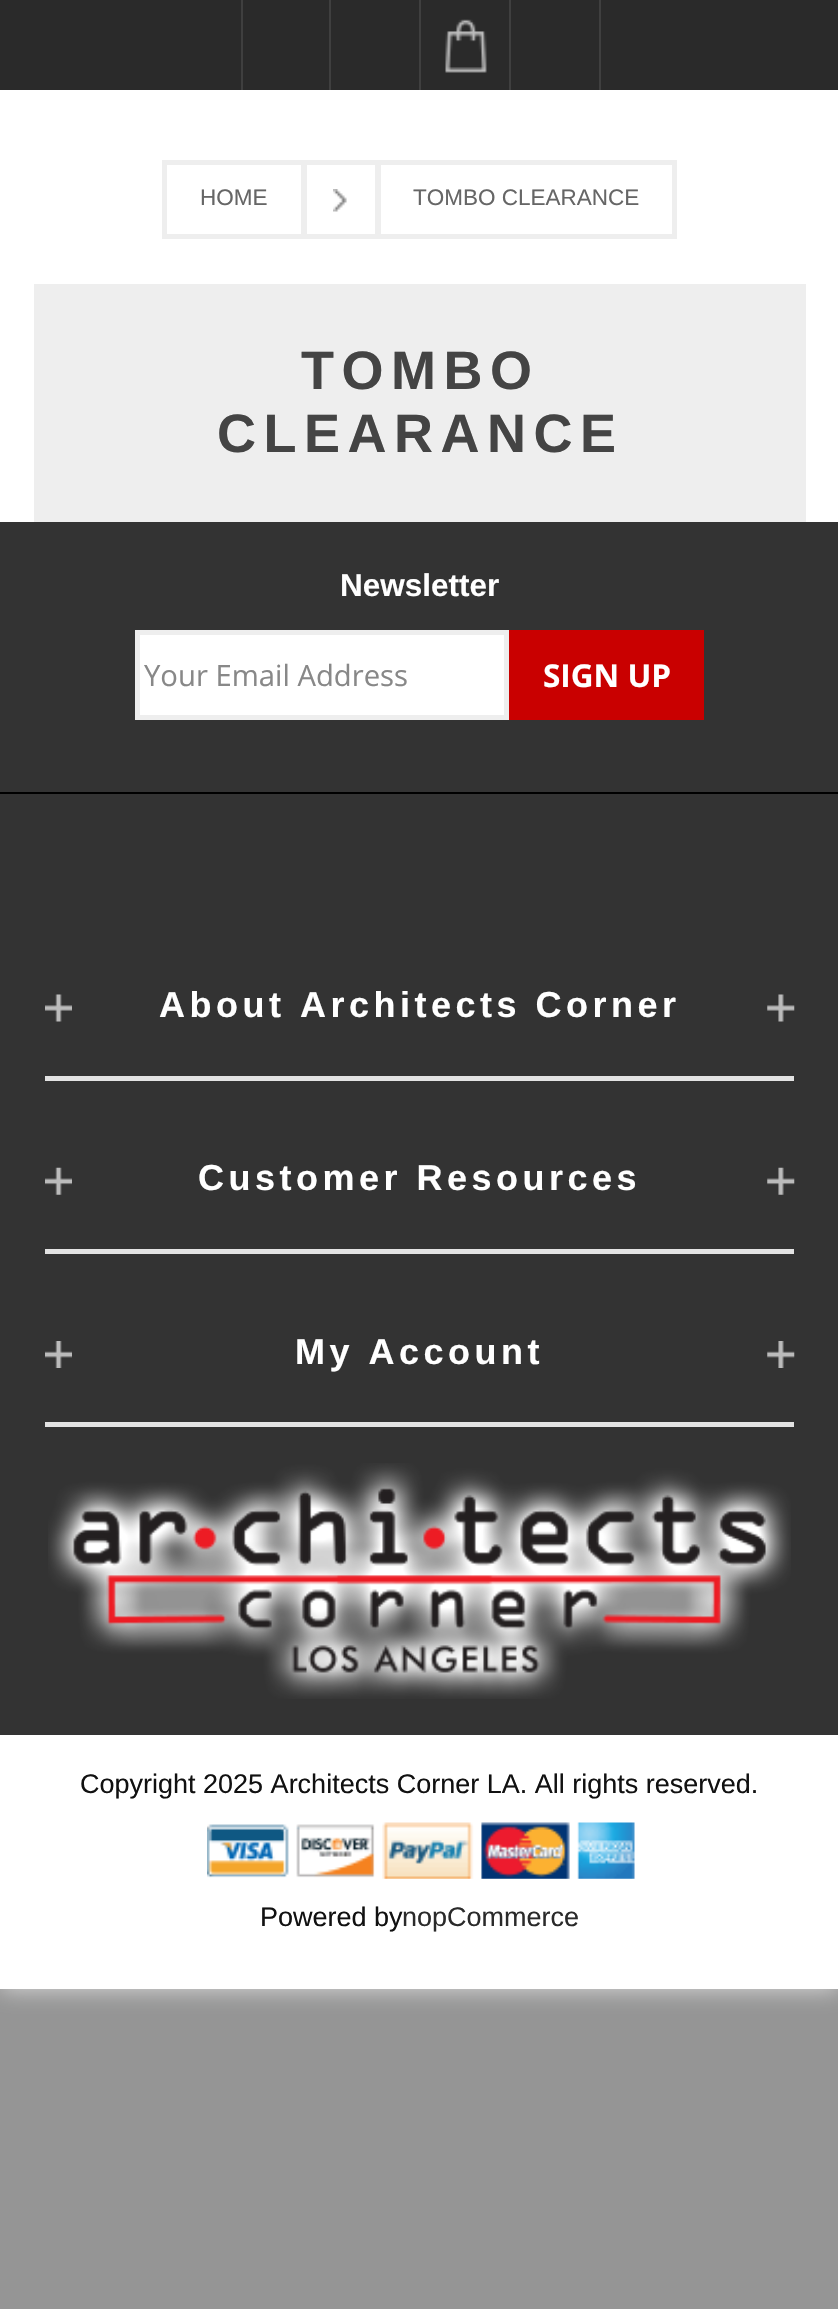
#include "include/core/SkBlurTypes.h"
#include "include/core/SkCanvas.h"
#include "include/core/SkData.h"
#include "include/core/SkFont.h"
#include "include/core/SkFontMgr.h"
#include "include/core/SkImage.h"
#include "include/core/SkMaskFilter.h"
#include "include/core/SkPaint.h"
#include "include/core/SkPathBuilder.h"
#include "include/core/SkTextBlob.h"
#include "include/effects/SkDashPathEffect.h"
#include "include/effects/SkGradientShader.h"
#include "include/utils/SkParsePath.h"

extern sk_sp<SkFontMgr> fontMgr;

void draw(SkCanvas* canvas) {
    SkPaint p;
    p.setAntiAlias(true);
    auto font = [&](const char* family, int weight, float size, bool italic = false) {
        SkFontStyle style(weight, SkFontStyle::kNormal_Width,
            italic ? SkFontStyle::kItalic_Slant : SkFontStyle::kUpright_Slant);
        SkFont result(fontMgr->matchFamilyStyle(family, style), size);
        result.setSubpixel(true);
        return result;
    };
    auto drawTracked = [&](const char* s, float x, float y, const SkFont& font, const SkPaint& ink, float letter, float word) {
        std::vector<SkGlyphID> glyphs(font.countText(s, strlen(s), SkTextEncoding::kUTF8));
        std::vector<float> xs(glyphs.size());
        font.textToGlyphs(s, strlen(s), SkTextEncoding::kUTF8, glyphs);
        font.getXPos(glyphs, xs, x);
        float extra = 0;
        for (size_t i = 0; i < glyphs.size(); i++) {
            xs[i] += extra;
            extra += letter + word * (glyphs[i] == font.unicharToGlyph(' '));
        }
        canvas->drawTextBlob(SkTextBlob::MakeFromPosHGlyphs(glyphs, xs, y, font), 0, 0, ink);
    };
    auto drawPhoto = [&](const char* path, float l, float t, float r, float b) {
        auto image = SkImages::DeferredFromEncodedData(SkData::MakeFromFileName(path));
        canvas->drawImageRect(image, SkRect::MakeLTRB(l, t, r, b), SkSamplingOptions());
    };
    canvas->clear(0xFF959595);
    p.setColor(0xFFDDDDDD);
    p.setMaskFilter(SkMaskFilter::MakeBlur(kNormal_SkBlurStyle, 11));
    canvas->drawRect(SkRect::MakeLTRB(0, 0, 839, 1989), p);
    p.setMaskFilter(nullptr);
    {
        const struct { float l, t, r, b; SkColor color; } items[] = {
            {0, 90, 838, 522, 0xFFFFFFFF},
            {0, 0, 838, 90, 0xFF2A2A2A},
            {329, 0, 331, 90, 0xFF3F3F3F},
            {241, 0, 243, 90, 0xFF3F3F3F},
            {419, 0, 421, 90, 0xFF3F3F3F},
        };
        for (auto [l, t, r, b, color] : items) {
            p.setColor(color);
            canvas->drawRect(SkRect::MakeLTRB(l, t, r, b), p);
        }
    }
    drawPhoto("media/1.png", 445, 19, 487, 73);
    canvas->drawRect(SkRect::MakeLTRB(509, 0, 511, 90), p);
    canvas->drawRect(SkRect::MakeLTRB(599, 0, 601, 90), p);
    p.setStyle(SkPaint::kStroke_Style);
    p.setStrokeWidth(5);
    p.setColor(0xFFEEEEEE);
    canvas->drawRect(SkRect::MakeLTRB(164.5f, 162.5f, 303.5f, 236.5f), p);
    auto font1 = font("Liberation Sans", 400, 22.5f);
    p.setStyle(SkPaint::kFill_Style);
    p.setColor(0xFF666666);
    canvas->drawString("HOME", 200, 205, font1, p);
    drawPhoto("media/2.png", 333, 189, 347, 212);
    p.setStyle(SkPaint::kStroke_Style);
    p.setColor(0xFFEEEEEE);
    canvas->drawRect(SkRect::MakeLTRB(304.5f, 162.5f, 377.5f, 236.5f), p);
    canvas->drawRect(SkRect::MakeLTRB(378.5f, 162.5f, 674.5f, 236.5f), p);
    p.setStyle(SkPaint::kFill_Style);
    p.setColor(0xFF666666);
    canvas->drawString("TOMBO CLEARANCE", 413, 205, font1, p);
    p.setColor(0xFFEEEEEE);
    canvas->drawRect(SkRect::MakeLTRB(34, 284, 806, 522), p);
    auto font2 = font("Liberation Sans", 700, 54);
    p.setColor(0xFF444444);
    drawTracked("TOMBO", 301, 389, font2, p, 7.5f, 0);
    drawTracked("CLEARANCE", 217, 452, font2, p, 7.5f, 0);
    p.setColor(0xFF333333);
    canvas->drawRect(SkRect::MakeLTRB(0, 522, 838, 792), p);
    auto font3 = font("Liberation Sans", 700, 31.5f);
    p.setColor(0xFFFFFFFF);
    canvas->drawString("Newsletter", 340, 596, font3, p);
    canvas->drawRect(SkRect::MakeLTRB(137.5f, 632.5f, 506.5f, 717.5f), p);
    p.setStyle(SkPaint::kStroke_Style);
    p.setColor(0xFFEEEEEE);
    canvas->drawRect(SkRect::MakeLTRB(137.5f, 632.5f, 506.5f, 717.5f), p);
    auto font4 = font("Open Sans", 400, 29.25f);
    p.setStyle(SkPaint::kFill_Style);
    p.setColor(0xFF888888);
    canvas->drawString("Your Email Address", 144, 686, font4, p);
    p.setColor(0xFFC90000);
    canvas->drawRect(SkRect::MakeLTRB(509, 630, 704, 720), p);
    auto font5 = font("Open Sans", 700, 31.5f);
    p.setColor(0xFFFFFFFF);
    canvas->drawString("SIGN UP", 543, 687, font5, p);
    {
        const struct { float l, t, r, b; SkColor color; } items[] = {
            {0, 794, 838, 1735, 0xFF333333},
            {0, 792, 838, 794, 0xFF000000},
            {45, 1076, 794, 1081, 0xFFE3E3E3},
        };
        for (auto [l, t, r, b, color] : items) {
            p.setColor(color);
            canvas->drawRect(SkRect::MakeLTRB(l, t, r, b), p);
        }
    }
    drawPhoto("media/3.png", 45, 994, 72, 1022);
    auto font6 = font("Liberation Sans", 700, 36);
    p.setColor(0xFFFFFFFF);
    drawTracked("About Architects Corner", 159, 1017, font6, p, 4.5f, 0);
    drawPhoto("media/4.png", 767, 994, 795, 1022);
    p.setColor(0xFFE3E3E3);
    canvas->drawRect(SkRect::MakeLTRB(45, 1249, 794, 1254), p);
    drawPhoto("media/5.png", 45, 1167, 72, 1195);
    p.setColor(0xFFFFFFFF);
    drawTracked("Customer Resources", 198, 1190, font6, p, 4.5f, 0);
    drawPhoto("media/6.png", 767, 1167, 795, 1195);
    p.setColor(0xFFE3E3E3);
    canvas->drawRect(SkRect::MakeLTRB(45, 1422, 794, 1427), p);
    drawPhoto("media/7.png", 45, 1341, 72, 1368);
    p.setColor(0xFFFFFFFF);
    drawTracked("My Account", 295, 1364, font6, p, 4.5f, 0);
    drawPhoto("media/8.png", 767, 1341, 795, 1368);
    drawPhoto("media/9.png", 48, 1463, 791, 1699);
    canvas->drawRect(SkRect::MakeLTRB(0, 1735, 838, 1989), p);
    auto font7 = font("Liberation Sans", 400, 27);
    p.setColor(0xFF111111);
    canvas->drawString("Copyright 2025 Architects Corner LA. All rights reserved.", 80, 1793, font7, p);
    drawPhoto("media/10.png", 207, 1822, 635, 1879);
    canvas->drawString("Powered by", 260, 1926, font7, p);
    p.setColor(0xFF2A2A2A);
    canvas->drawString("nopCommerce", 402, 1926, font7, p);
}
